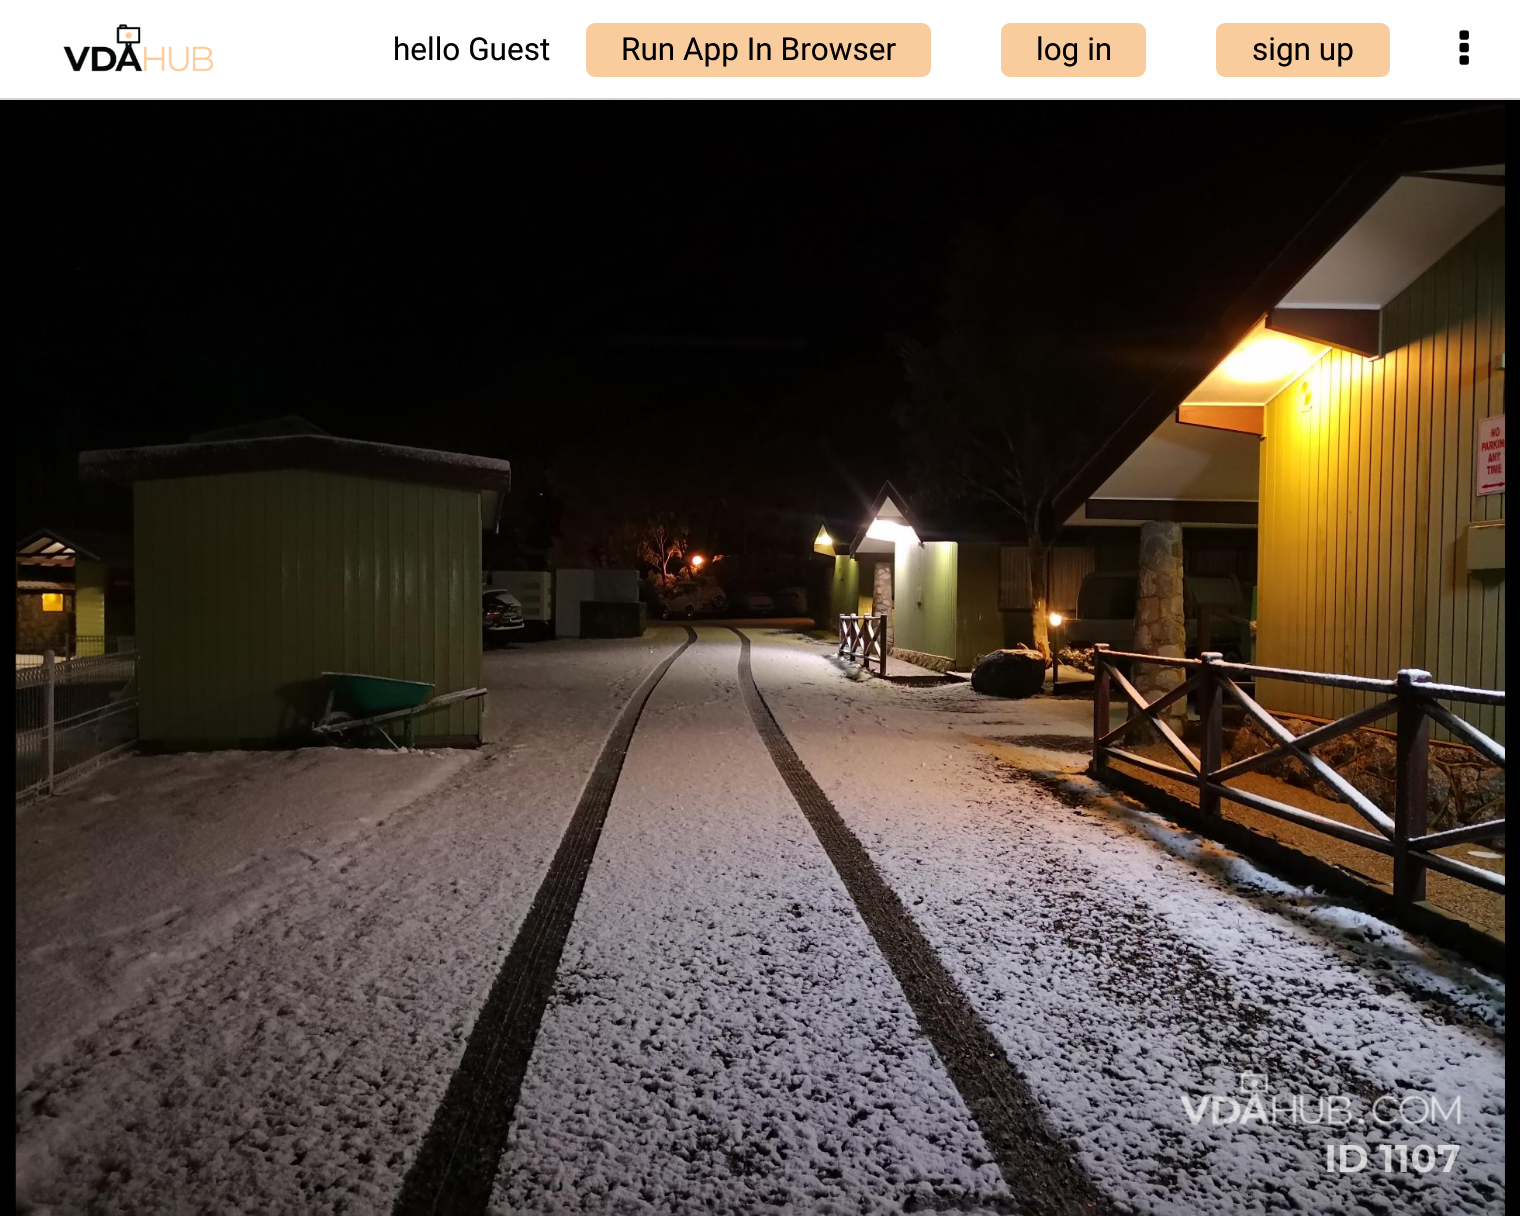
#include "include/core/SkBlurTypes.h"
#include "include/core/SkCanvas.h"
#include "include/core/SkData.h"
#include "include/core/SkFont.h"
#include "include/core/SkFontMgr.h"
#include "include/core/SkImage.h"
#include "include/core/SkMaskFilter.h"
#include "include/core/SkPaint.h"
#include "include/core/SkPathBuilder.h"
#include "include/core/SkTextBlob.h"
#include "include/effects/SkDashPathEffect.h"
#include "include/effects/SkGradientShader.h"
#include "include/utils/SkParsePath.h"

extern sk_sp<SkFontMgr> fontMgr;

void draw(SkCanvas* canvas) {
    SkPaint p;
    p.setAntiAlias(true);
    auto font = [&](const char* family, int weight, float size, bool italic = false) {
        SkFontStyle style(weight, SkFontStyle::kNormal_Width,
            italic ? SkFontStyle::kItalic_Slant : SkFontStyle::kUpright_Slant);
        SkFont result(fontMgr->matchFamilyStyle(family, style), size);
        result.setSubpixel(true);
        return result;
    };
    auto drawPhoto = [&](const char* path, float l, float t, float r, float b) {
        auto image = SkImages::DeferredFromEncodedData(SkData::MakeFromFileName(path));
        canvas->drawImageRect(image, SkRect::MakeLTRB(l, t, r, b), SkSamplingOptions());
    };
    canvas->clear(0xFF000000);
    p.setColor(0xFFFFFFFF);
    canvas->drawRect(SkRect::MakeLTRB(0, 0, 1520, 98), p);
    p.setColor(0xFFD3D3D3);
    canvas->drawRect(SkRect::MakeLTRB(0, 98, 1520, 100), p);
    drawPhoto("media/1.png", 63, 24, 214, 72);
    auto font1 = font("Roboto", 400, 31.5f);
    p.setColor(0xFF000000);
    canvas->drawString("hello Guest", 393, 60, font1, p);
    p.setColor(0xFFF9CC9D);
    canvas->drawRoundRect(SkRect::MakeLTRB(586, 23, 931, 77), 9, 9, p);
    p.setColor(0xFF000000);
    canvas->drawString("Run App In Browser", 621, 60, font1, p);
    p.setColor(0xFFF9CC9D);
    canvas->drawRoundRect(SkRect::MakeLTRB(1001, 23, 1146, 77), 9, 9, p);
    p.setColor(0xFF000000);
    canvas->drawString("log in", 1036, 60, font1, p);
    p.setColor(0xFFF9CC9D);
    canvas->drawRoundRect(SkRect::MakeLTRB(1216, 23, 1390, 77), 9, 9, p);
    p.setColor(0xFF000000);
    canvas->drawString("sign up", 1252, 60, font1, p);
    drawPhoto("media/2.png", 1459, 30, 1469, 65);
    drawPhoto("media/3.png", 15, 100, 1505, 1216);
}
